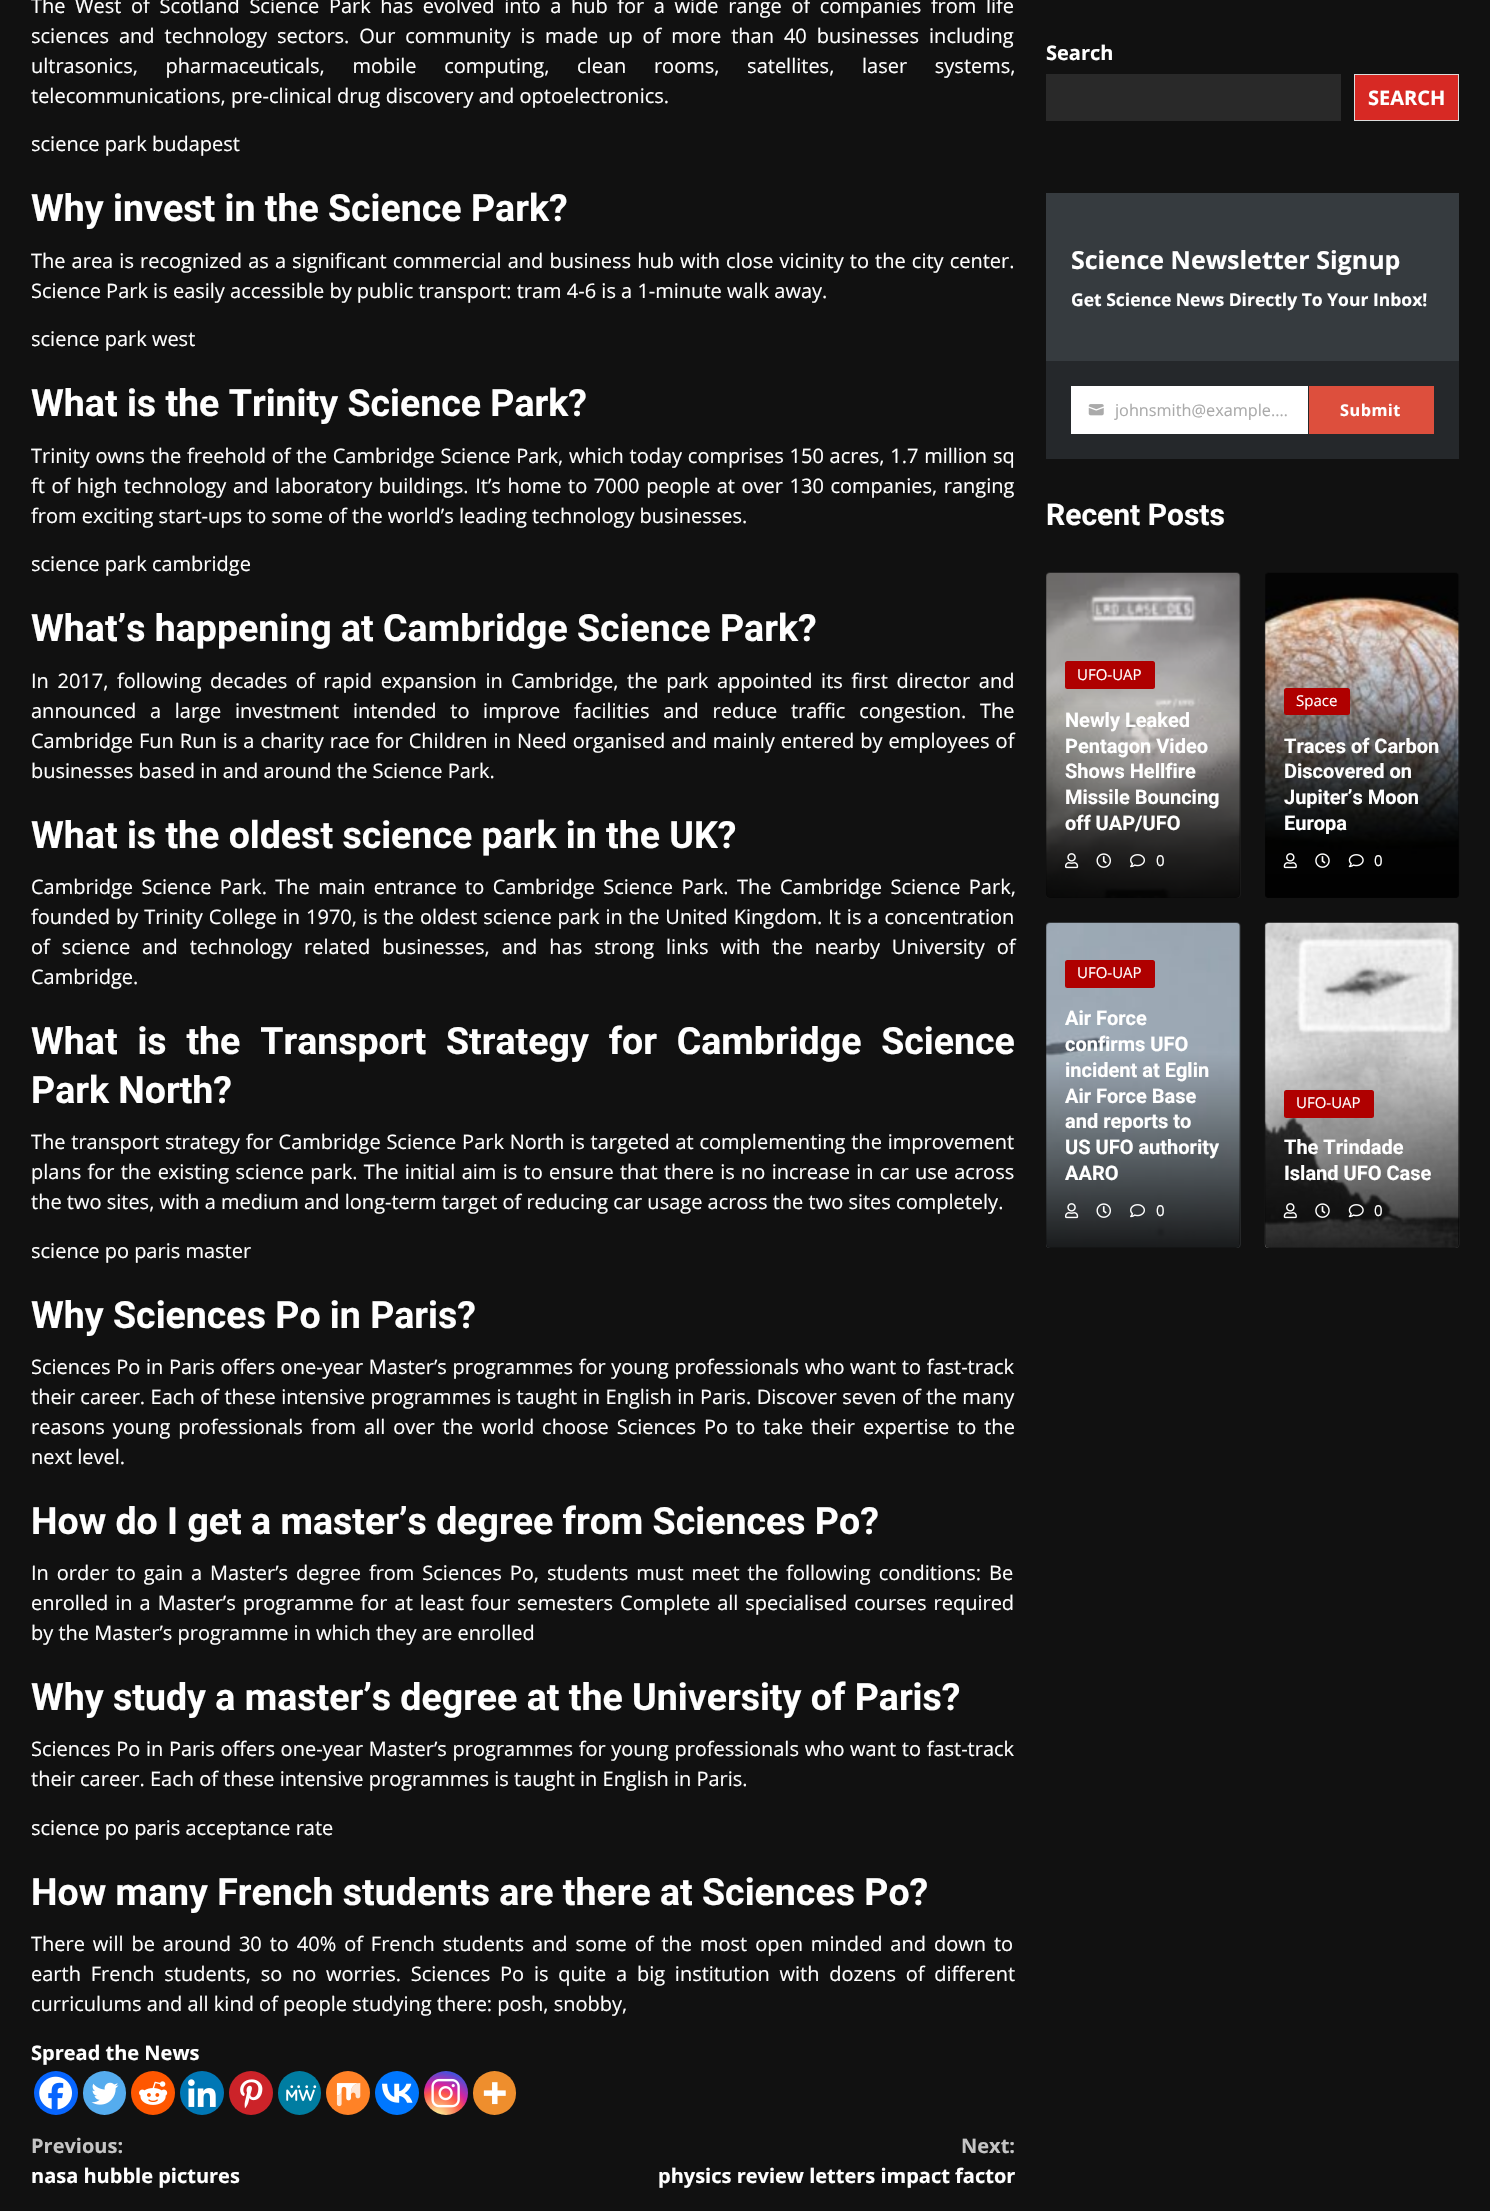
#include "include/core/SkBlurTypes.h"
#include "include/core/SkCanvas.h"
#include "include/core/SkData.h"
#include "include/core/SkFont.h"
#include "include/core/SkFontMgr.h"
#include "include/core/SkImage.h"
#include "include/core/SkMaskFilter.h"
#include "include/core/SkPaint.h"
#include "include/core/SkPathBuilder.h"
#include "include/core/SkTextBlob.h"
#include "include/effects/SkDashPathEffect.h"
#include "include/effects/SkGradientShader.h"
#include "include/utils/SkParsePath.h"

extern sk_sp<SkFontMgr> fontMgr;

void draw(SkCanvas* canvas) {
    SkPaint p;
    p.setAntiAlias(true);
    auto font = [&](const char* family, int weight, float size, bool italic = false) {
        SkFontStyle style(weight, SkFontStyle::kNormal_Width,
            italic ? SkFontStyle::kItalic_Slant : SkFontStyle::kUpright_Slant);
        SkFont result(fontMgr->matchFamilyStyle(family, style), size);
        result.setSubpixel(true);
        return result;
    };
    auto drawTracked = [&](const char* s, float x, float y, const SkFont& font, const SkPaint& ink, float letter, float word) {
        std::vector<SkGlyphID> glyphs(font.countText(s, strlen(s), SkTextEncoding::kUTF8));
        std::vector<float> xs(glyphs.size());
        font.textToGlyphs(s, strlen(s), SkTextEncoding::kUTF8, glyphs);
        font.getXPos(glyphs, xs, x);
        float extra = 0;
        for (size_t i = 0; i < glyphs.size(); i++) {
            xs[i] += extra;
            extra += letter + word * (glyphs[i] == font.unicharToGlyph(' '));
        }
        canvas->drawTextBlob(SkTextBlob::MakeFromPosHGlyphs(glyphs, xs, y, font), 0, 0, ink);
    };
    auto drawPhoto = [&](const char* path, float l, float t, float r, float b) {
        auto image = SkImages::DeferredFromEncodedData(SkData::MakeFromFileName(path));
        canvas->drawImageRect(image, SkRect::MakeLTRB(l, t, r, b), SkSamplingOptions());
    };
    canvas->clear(0xFF111111);
    auto font1 = font("Open Sans", 400, 20);
    p.setColor(0xFFFFFFFF);
    drawTracked("The West of Scotland Science Park has evolved into a hub for a wide range of companies from life", 31, 13, font1, p, 0, 4.4f);
    drawTracked("sciences and technology sectors. Our community is made up of more than 40 businesses including", 31, 43, font1, p, 0, 4.75f);
    drawTracked("ultrasonics, pharmaceuticals, mobile computing, clean rooms, satellites, laser systems,", 31, 73, font1, p, 0, 22.5f);
    canvas->drawString("telecommunications, pre-clinical drug discovery and optoelectronics.", 31, 103, font1, p);
    canvas->drawString("science park budapest", 31, 151, font1, p);
    auto font2 = font("Roboto", 700, 37.5f);
    canvas->drawString("Why invest in the Science Park?", 31, 221, font2, p);
    drawTracked("The area is recognized as a significant commercial and business hub with close vicinity to the city center.", 31, 268, font1, p, 0, 0.9f);
    canvas->drawString("Science Park is easily accessible by public transport: tram 4-6 is a 1-minute walk away.", 31, 298, font1, p);
    canvas->drawString("science park west", 31, 346, font1, p);
    canvas->drawString("What is the Trinity Science Park?", 31, 416, font2, p);
    drawTracked("Trinity owns the freehold of the Cambridge Science Park, which today comprises 150 acres, 1.7 million sq", 31, 463, font1, p, 0, 0.6f);
    drawTracked("ft of high technology and laboratory buildings. It’s home to 7000 people at over 130 companies, ranging", 31, 493, font1, p, 0, 1.4f);
    canvas->drawString("from exciting start-ups to some of the world’s leading technology businesses.", 31, 523, font1, p);
    canvas->drawString("science park cambridge", 31, 571, font1, p);
    canvas->drawString("What’s happening at Cambridge Science Park?", 31, 641, font2, p);
    drawTracked("In 2017, following decades of rapid expansion in Cambridge, the park appointed its first director and", 31, 688, font1, p, 0, 3.4f);
    drawTracked("announced a large investment intended to improve facilities and reduce traffic congestion. The", 31, 718, font1, p, 0, 8.5f);
    drawTracked("Cambridge Fun Run is a charity race for Children in Need organised and mainly entered by employees of", 31, 748, font1, p, 0, 0.8f);
    canvas->drawString("businesses based in and around the Science Park.", 31, 778, font1, p);
    canvas->drawString("What is the oldest science park in the UK?", 31, 848, font2, p);
    drawTracked("Cambridge Science Park. The main entrance to Cambridge Science Park. The Cambridge Science Park,", 31, 894, font1, p, 0, 3.25f);
    drawTracked("founded by Trinity College in 1970, is the oldest science park in the United Kingdom. It is a concentration", 31, 924, font1, p, 0, 0.75f);
    drawTracked("of science and technology related businesses, and has strong links with the nearby University of", 31, 954, font1, p, 0, 6.75f);
    canvas->drawString("Cambridge.", 31, 984, font1, p);
    drawTracked("What is the Transport Strategy for Cambridge Science", 31, 1054, font2, p, 0, 10.5f);
    canvas->drawString("Park North?", 31, 1103, font2, p);
    drawTracked("The transport strategy for Cambridge Science Park North is targeted at complementing the improvement", 31, 1149, font1, p, 0, 0.6f);
    drawTracked("plans for the existing science park. The initial aim is to ensure that there is no increase in car use across", 31, 1179, font1, p, 0, 1.1f);
    canvas->drawString("the two sites, with a medium and long-term target of reducing car usage across the two sites completely.", 31, 1209, font1, p);
    canvas->drawString("science po paris master", 31, 1258, font1, p);
    canvas->drawString("Why Sciences Po in Paris?", 31, 1328, font2, p);
    drawTracked("Sciences Po in Paris offers one-year Master’s programmes for young professionals who want to fast-track", 31, 1374, font1, p, 0, 0.5f);
    drawTracked("their career. Each of these intensive programmes is taught in English in Paris. Discover seven of the many", 31, 1404, font1, p, 0, 0.3f);
    drawTracked("reasons young professionals from all over the world choose Sciences Po to take their expertise to the", 31, 1434, font1, p, 0, 2.75f);
    canvas->drawString("next level.", 31, 1464, font1, p);
    canvas->drawString("How do I get a master’s degree from Sciences Po?", 31, 1534, font2, p);
    drawTracked("In order to gain a Master’s degree from Sciences Po, students must meet the following conditions: Be", 31, 1580, font1, p, 0, 2.75f);
    drawTracked("enrolled in a Master’s programme for at least four semesters Complete all specialised courses required", 31, 1610, font1, p, 0, 1.8f);
    canvas->drawString("by the Master’s programme in which they are enrolled", 31, 1640, font1, p);
    canvas->drawString("Why study a master’s degree at the University of Paris?", 31, 1710, font2, p);
    drawTracked("Sciences Po in Paris offers one-year Master’s programmes for young professionals who want to fast-track", 31, 1756, font1, p, 0, 0.5f);
    canvas->drawString("their career. Each of these intensive programmes is taught in English in Paris.", 31, 1786, font1, p);
    canvas->drawString("science po paris acceptance rate", 31, 1835, font1, p);
    canvas->drawString("How many French students are there at Sciences Po?", 31, 1905, font2, p);
    drawTracked("There will be around 30 to 40% of French students and some of the most open minded and down to", 31, 1951, font1, p, 0, 2.75f);
    drawTracked("earth French students, so no worries. Sciences Po is quite a big institution with dozens of different", 31, 1981, font1, p, 0, 4.6f);
    canvas->drawString("curriculums and all kind of people studying there: posh, snobby,", 31, 2011, font1, p);
    auto font3 = font("Open Sans", 700, 20);
    canvas->drawString("Spread the News", 31, 2060, font3, p);
    p.setColor(0xFF0765FE);
    canvas->drawCircle(56, 2093, 22, p);
    drawPhoto("media/1.png", 39, 2076, 72, 2110);
    p.setColor(0xFF55ACEE);
    canvas->drawRoundRect(SkRect::MakeLTRB(83, 2071, 126, 2115), 21.5f, 21.5f, p);
    drawPhoto("media/2.png", 91, 2082, 119, 2105);
    p.setColor(0xFFFF5700);
    canvas->drawCircle(153, 2093, 22, p);
    drawPhoto("media/3.png", 139, 2081, 168, 2105);
    p.setColor(0xFF0077B5);
    canvas->drawCircle(202, 2093, 22, p);
    drawPhoto("media/4.png", 188, 2079, 216, 2107);
    p.setColor(0xFFCC2329);
    canvas->drawCircle(251, 2093, 22, p);
    drawPhoto("media/5.png", 240, 2079, 263, 2109);
    p.setColor(0xFF007DA1);
    canvas->drawRoundRect(SkRect::MakeLTRB(278, 2071, 321, 2115), 21.5f, 21.5f, p);
    drawPhoto("media/6.png", 286, 2085, 317, 2101);
    p.setColor(0xFFFF8226);
    canvas->drawCircle(348, 2093, 22, p);
    drawPhoto("media/7.png", 336, 2083, 361, 2107);
    p.setColor(0xFF0077FF);
    canvas->drawCircle(397, 2093, 22, p);
    drawPhoto("media/8.png", 382, 2083, 413, 2103);
    {
        const SkColor colors[] = {0xFFFDF497, 0xFFFDF497, 0xFFFD5949, 0xFFD6249F, 0xFF285AEB};
        const float stops[] = {0, 0.05f, 0.45f, 0.6f, 0.9f};
        p.setShader(SkGradientShader::MakeRadial({437, 2118}, 56, colors, stops, 5, SkTileMode::kClamp));
        p.setAlpha(255);
    }
    canvas->drawCircle(446, 2093, 22, p);
    drawPhoto("media/9.png", 431, 2078, 460, 2108);
    p.setShader(nullptr);
    p.setColor(0xFFEE8E2D);
    canvas->drawRoundRect(SkRect::MakeLTRB(473, 2071, 516, 2115), 21.5f, 21.5f, p);
    drawPhoto("media/10.png", 483, 2082, 506, 2105);
    p.setColor(0xFFC4C4C4);
    canvas->drawString("Previous:", 31, 2153, font3, p);
    p.setColor(0xFFFFFFFF);
    canvas->drawString("nasa hubble pictures", 31, 2183, font3, p);
    p.setColor(0xFFC4C4C4);
    canvas->drawString("Next:", 961, 2153, font3, p);
    p.setColor(0xFFFFFFFF);
    canvas->drawString("physics review letters impact factor", 658, 2183, font3, p);
    canvas->drawString("Search", 1046, 60, font3, p);
    p.setColor(0xFF292929);
    canvas->drawRect(SkRect::MakeLTRB(1046, 74, 1341, 121), p);
    p.setColor(0xFFD72924);
    canvas->drawRect(SkRect::MakeLTRB(1354.5f, 74.5f, 1458.5f, 120.5f), p);
    p.setStyle(SkPaint::kStroke_Style);
    p.setStrokeWidth(1);
    p.setColor(0xFFDCDCDC);
    canvas->drawRect(SkRect::MakeLTRB(1354.5f, 74.5f, 1458.5f, 120.5f), p);
    p.setStyle(SkPaint::kFill_Style);
    p.setColor(0xFFFFFFFF);
    canvas->drawString("SEARCH", 1368, 105, font3, p);
    p.setColor(0xFF25282B);
    canvas->drawRect(SkRect::MakeLTRB(1046, 361, 1459, 459), p);
    p.setColor(0xFF363B3F);
    canvas->drawRect(SkRect::MakeLTRB(1046, 193, 1459, 361), p);
    auto font4 = font("Open Sans", 700, 25);
    p.setColor(0xFFFFFFFF);
    canvas->drawString("Science Newsletter Signup", 1071, 269, font4, p);
    auto font5 = font("Open Sans", 700, 17.5f);
    canvas->drawString("Get Science News Directly To Your Inbox!", 1071, 306, font5, p);
    canvas->drawRect(SkRect::MakeLTRB(1071, 386, 1308, 434), p);
    drawPhoto("media/11.png", 1088, 404, 1104, 416);
    auto font6 = font("Open Sans", 400, 16.25f);
    p.setColor(0xFFAAAAAA);
    canvas->drawString("johnsmith@example.…", 1115, 416, font6, p);
    p.setColor(0xFFDD4F3D);
    canvas->drawRect(SkRect::MakeLTRB(1309, 386, 1434, 434), p);
    auto font7 = font("Open Sans", 700, 16.25f);
    p.setColor(0xFFFFFFFF);
    drawTracked("Submit", 1340, 416, font7, p, 0.5f, 0);
    auto font8 = font("Roboto", 700, 30);
    canvas->drawString("Recent Posts", 1046, 525, font8, p);
    drawPhoto("media/12.png", 1046, 572, 1241, 898);
    {
        const SkColor colors[] = {0x00000000, 0xD9000000};
        const float stops[] = {0.4f, 1};
        const SkPoint ends[] = {{1143, 573}, {1143, 898}};
        p.setShader(SkGradientShader::MakeLinear(ends, colors, stops, 2, SkTileMode::kClamp));
        p.setAlpha(255);
    }
    canvas->drawRoundRect(SkRect::MakeLTRB(1046, 573, 1240, 898), 4, 4, p);
    p.setShader(nullptr);
    p.setColor(0xFFAF0000);
    canvas->drawRoundRect(SkRect::MakeLTRB(1065, 661, 1155, 689), 2.5f, 2.5f, p);
    auto font9 = font("Open Sans", 400, 15);
    p.setColor(0xFFFFFFFF);
    canvas->drawString("UFO-UAP", 1077, 680, font9, p);
    auto font10 = font("Roboto", 700, 20);
    {
        const struct { const char* s; float x, y; } items[] = {
            {"Newly Leaked", 1065, 727},
            {"Pentagon Video", 1065, 753},
            {"Shows Hellfire", 1065, 778},
            {"Missile Bouncing", 1065, 804},
            {"off UAP/UFO", 1065, 830},
        };
        for (auto [s, x, y] : items) {
            canvas->drawString(s, x, y, font10, p);
        }
    }
    drawPhoto("media/13.png", 1065, 853, 1079, 869);
    drawPhoto("media/14.png", 1096, 853, 1111, 868);
    drawPhoto("media/15.png", 1130, 854, 1145, 868);
    canvas->drawString("0", 1156, 866, font9, p);
    drawPhoto("media/16.png", 1264, 572, 1460, 898);
    {
        const SkColor colors[] = {0x00000000, 0xD9000000};
        const float stops[] = {0.4f, 1};
        const SkPoint ends[] = {{1362, 573}, {1362, 898}};
        p.setShader(SkGradientShader::MakeLinear(ends, colors, stops, 2, SkTileMode::kClamp));
        p.setAlpha(255);
    }
    canvas->drawRoundRect(SkRect::MakeLTRB(1265, 573, 1459, 898), 4, 4, p);
    p.setShader(nullptr);
    p.setColor(0xFFAF0000);
    canvas->drawRoundRect(SkRect::MakeLTRB(1284, 688, 1350, 715), 2.5f, 2.5f, p);
    p.setColor(0xFFFFFFFF);
    canvas->drawString("Space", 1296, 706, font9, p);
    {
        const struct { const char* s; float x, y; } items[] = {
            {"Traces of Carbon", 1284, 753},
            {"Discovered on", 1284, 778},
            {"Jupiter’s Moon", 1284, 804},
            {"Europa", 1284, 830},
        };
        for (auto [s, x, y] : items) {
            canvas->drawString(s, x, y, font10, p);
        }
    }
    drawPhoto("media/17.png", 1283, 853, 1297, 869);
    drawPhoto("media/18.png", 1315, 853, 1330, 868);
    drawPhoto("media/19.png", 1348, 854, 1364, 868);
    canvas->drawString("0", 1374, 866, font9, p);
    drawPhoto("media/20.png", 1046, 922, 1241, 1248);
    {
        const SkColor colors[] = {0x00000000, 0xD9000000};
        const float stops[] = {0.4f, 1};
        const SkPoint ends[] = {{1143, 923}, {1143, 1248}};
        p.setShader(SkGradientShader::MakeLinear(ends, colors, stops, 2, SkTileMode::kClamp));
        p.setAlpha(255);
    }
    canvas->drawRoundRect(SkRect::MakeLTRB(1046, 923, 1240, 1248), 4, 4, p);
    p.setShader(nullptr);
    p.setColor(0xFFAF0000);
    canvas->drawRoundRect(SkRect::MakeLTRB(1065, 960, 1155, 988), 2.5f, 2.5f, p);
    p.setColor(0xFFFFFFFF);
    canvas->drawString("UFO-UAP", 1077, 978, font9, p);
    {
        const struct { const char* s; float x, y; } items[] = {
            {"Air Force", 1065, 1025},
            {"confirms UFO", 1065, 1051},
            {"incident at Eglin", 1065, 1077},
            {"Air Force Base", 1065, 1103},
            {"and reports to", 1065, 1128},
            {"US UFO authority", 1065, 1154},
            {"AARO", 1065, 1180},
        };
        for (auto [s, x, y] : items) {
            canvas->drawString(s, x, y, font10, p);
        }
    }
    drawPhoto("media/21.png", 1065, 1203, 1079, 1219);
    drawPhoto("media/22.png", 1096, 1203, 1111, 1218);
    drawPhoto("media/23.png", 1130, 1204, 1145, 1218);
    canvas->drawString("0", 1156, 1216, font9, p);
    drawPhoto("media/24.png", 1264, 922, 1460, 1248);
    {
        const SkColor colors[] = {0x00000000, 0xD9000000};
        const float stops[] = {0.4f, 1};
        const SkPoint ends[] = {{1362, 923}, {1362, 1248}};
        p.setShader(SkGradientShader::MakeLinear(ends, colors, stops, 2, SkTileMode::kClamp));
        p.setAlpha(255);
    }
    canvas->drawRoundRect(SkRect::MakeLTRB(1265, 923, 1459, 1248), 4, 4, p);
    p.setShader(nullptr);
    p.setColor(0xFFAF0000);
    canvas->drawRoundRect(SkRect::MakeLTRB(1284, 1090, 1374, 1118), 2.5f, 2.5f, p);
    p.setColor(0xFFFFFFFF);
    canvas->drawString("UFO-UAP", 1296, 1108, font9, p);
    canvas->drawString("The Trindade", 1284, 1154, font10, p);
    canvas->drawString("Island UFO Case", 1284, 1180, font10, p);
    drawPhoto("media/25.png", 1283, 1203, 1297, 1219);
    drawPhoto("media/26.png", 1315, 1203, 1330, 1218);
    drawPhoto("media/27.png", 1348, 1204, 1364, 1218);
    canvas->drawString("0", 1374, 1216, font9, p);
}
